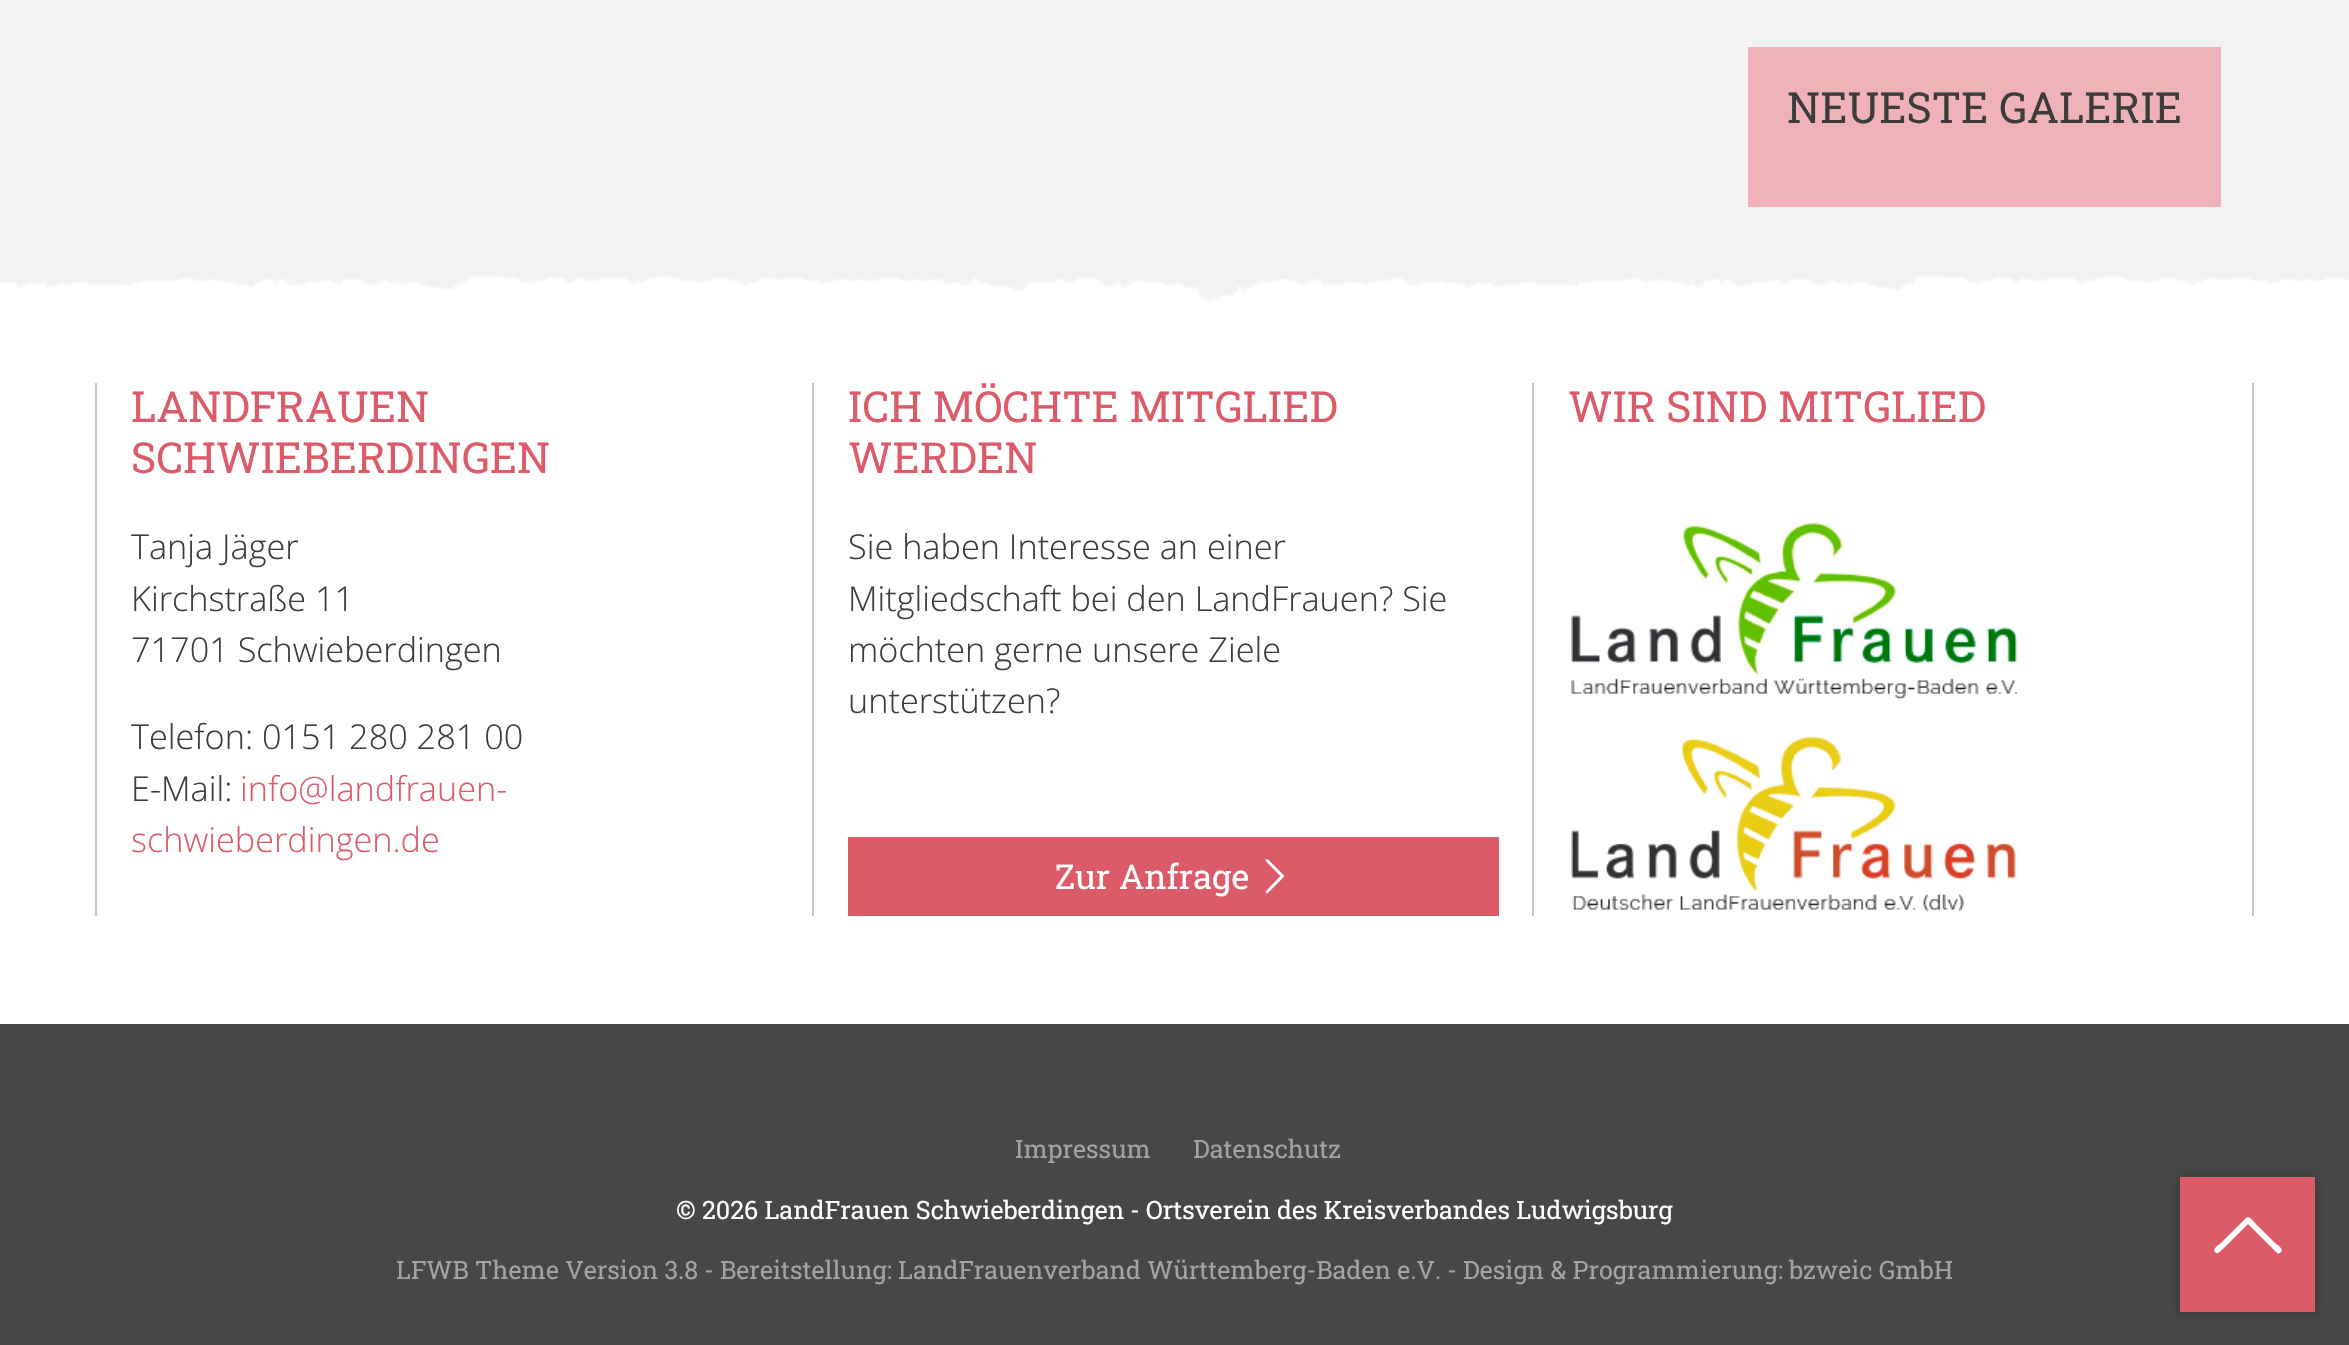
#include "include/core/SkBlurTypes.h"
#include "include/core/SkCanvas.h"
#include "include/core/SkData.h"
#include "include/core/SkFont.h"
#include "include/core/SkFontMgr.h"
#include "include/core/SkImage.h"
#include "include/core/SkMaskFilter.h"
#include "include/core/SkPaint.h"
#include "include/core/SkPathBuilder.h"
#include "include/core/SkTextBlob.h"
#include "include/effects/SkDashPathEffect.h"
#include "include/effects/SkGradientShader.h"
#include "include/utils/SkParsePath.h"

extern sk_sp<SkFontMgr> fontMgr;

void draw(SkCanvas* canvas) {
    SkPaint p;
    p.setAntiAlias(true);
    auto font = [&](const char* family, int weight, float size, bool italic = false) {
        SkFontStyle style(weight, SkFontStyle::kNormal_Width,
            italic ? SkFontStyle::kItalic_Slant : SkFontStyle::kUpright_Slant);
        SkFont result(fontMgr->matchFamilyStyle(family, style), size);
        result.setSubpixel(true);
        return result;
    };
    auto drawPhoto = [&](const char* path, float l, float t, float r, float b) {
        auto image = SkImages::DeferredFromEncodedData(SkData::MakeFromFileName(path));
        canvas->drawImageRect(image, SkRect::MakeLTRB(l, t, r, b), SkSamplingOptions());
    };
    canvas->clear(0xFFF2F2F2);
    p.setColor(0xFFEFB2B9);
    canvas->drawRect(SkRect::MakeLTRB(1748, 47, 2221, 207), p);
    auto font1 = font("Roboto Slab", 400, 42.75f);
    p.setColor(0xFF3C3C3B);
    canvas->drawString("NEUESTE GALERIE", 1787, 123, font1, p);
    p.setColor(0xFFFFFFFF);
    canvas->drawRect(SkRect::MakeLTRB(0, 275, 2349, 1024), p);
    drawPhoto("media/1.png", 0, 275, 2349, 303);
    p.setColor(0xFFC6C6C6);
    canvas->drawRect(SkRect::MakeLTRB(812, 383, 814, 916), p);
    canvas->drawRect(SkRect::MakeLTRB(95, 383, 97, 916), p);
    p.setColor(0xFFDB5B68);
    canvas->drawString("LANDFRAUEN", 131, 422, font1, p);
    canvas->drawString("SCHWIEBERDINGEN", 131, 473, font1, p);
    auto font2 = font("Open Sans", 300, 34.25f);
    p.setColor(0xFF3C3C3B);
    {
        const struct { const char* s; float x, y; } items[] = {
            {"Tanja Jäger", 131, 559},
            {"Kirchstraße 11", 131, 611},
            {"71701 Schwieberdingen", 131, 662},
            {"Telefon: 0151 280 281 00", 131, 749},
            {"E-Mail:", 131, 801},
        };
        for (auto [s, x, y] : items) {
            canvas->drawString(s, x, y, font2, p);
        }
    }
    p.setColor(0xFFDB5B68);
    canvas->drawString("info@landfrauen-", 240, 801, font2, p);
    canvas->drawString("schwieberdingen.de", 131, 852, font2, p);
    p.setColor(0xFFC6C6C6);
    canvas->drawRect(SkRect::MakeLTRB(1532, 383, 1534, 916), p);
    p.setColor(0xFFDB5B68);
    canvas->drawString("ICH MÖCHTE MITGLIED", 848, 422, font1, p);
    canvas->drawString("WERDEN", 848, 473, font1, p);
    p.setColor(0xFF3C3C3B);
    {
        const struct { const char* s; float x, y; } items[] = {
            {"Sie haben Interesse an einer", 848, 559},
            {"Mitgliedschaft bei den LandFrauen? Sie", 848, 611},
            {"möchten gerne unsere Ziele", 848, 662},
            {"unterstützen?", 848, 713},
        };
        for (auto [s, x, y] : items) {
            canvas->drawString(s, x, y, font2, p);
        }
    }
    p.setColor(0xFFDB5B68);
    canvas->drawRect(SkRect::MakeLTRB(848, 837, 1499, 916), p);
    auto font3 = font("Roboto Slab", 400, 34.25f);
    p.setColor(0xFFFFFFFF);
    canvas->drawString("Zur Anfrage", 1055, 889, font3, p);
    drawPhoto("media/2.png", 1265, 859, 1284, 894);
    p.setColor(0xFFC6C6C6);
    canvas->drawRect(SkRect::MakeLTRB(2252, 383, 2254, 916), p);
    p.setColor(0xFFDB5B68);
    canvas->drawString("WIR SIND MITGLIED", 1568, 422, font1, p);
    drawPhoto("media/3.png", 1571, 522, 2018, 699);
    drawPhoto("media/4.png", 1571, 736, 2016, 912);
    p.setColor(0xFF474747);
    canvas->drawRect(SkRect::MakeLTRB(0, 1024, 2349, 1345), p);
    auto font4 = font("Roboto Slab", 400, 25.2f);
    p.setColor(0xFFA3A3A3);
    canvas->drawString("Impressum", 1015, 1158, font4, p);
    canvas->drawString("Datenschutz", 1193, 1158, font4, p);
    p.setColor(0xFFFFFFFF);
    canvas->drawString("© 2026 LandFrauen Schwieberdingen", 676, 1219, font4, p);
    canvas->drawString("- Ortsverein des Kreisverbandes Ludwigsburg", 1130, 1219, font4, p);
    p.setColor(0xFFA3A3A3);
    {
        const struct { const char* s; float x, y; } items[] = {
            {"LFWB Theme Version 3.8", 396, 1279},
            {"- Bereitstellung: LandFrauenverband Württemberg-Baden e.V.", 704, 1279},
            {"- Design & Programmierung:", 1447, 1279},
            {"bzweic GmbH", 1789, 1279},
        };
        for (auto [s, x, y] : items) {
            canvas->drawString(s, x, y, font4, p);
        }
    }
    p.setColor(0x40000000);
    p.setMaskFilter(SkMaskFilter::MakeBlur(kNormal_SkBlurStyle, 5.5f));
    canvas->drawRect(SkRect::MakeLTRB(2180, 1177, 2315, 1312), p);
    p.setMaskFilter(nullptr);
    p.setColor(0xFFDB5B68);
    canvas->drawRect(SkRect::MakeLTRB(2180, 1177, 2315, 1312), p);
    p.setColor(0xFFFFFFFF);
    canvas->drawPath(SkPathBuilder().moveTo(2277, 1253).cubicTo(2278, 1254, 2280, 1253, 2281, 1252).cubicTo(2284, 1249, 2277, 1244, 2276, 1244).lineTo(2255, 1223).cubicTo(2254, 1222, 2249, 1215, 2246, 1218).lineTo(2220, 1244).cubicTo(2219, 1244, 2212, 1249, 2215, 1252).cubicTo(2218, 1256, 2222, 1249, 2224, 1248).lineTo(2248, 1224).close().detach(), p);
}
